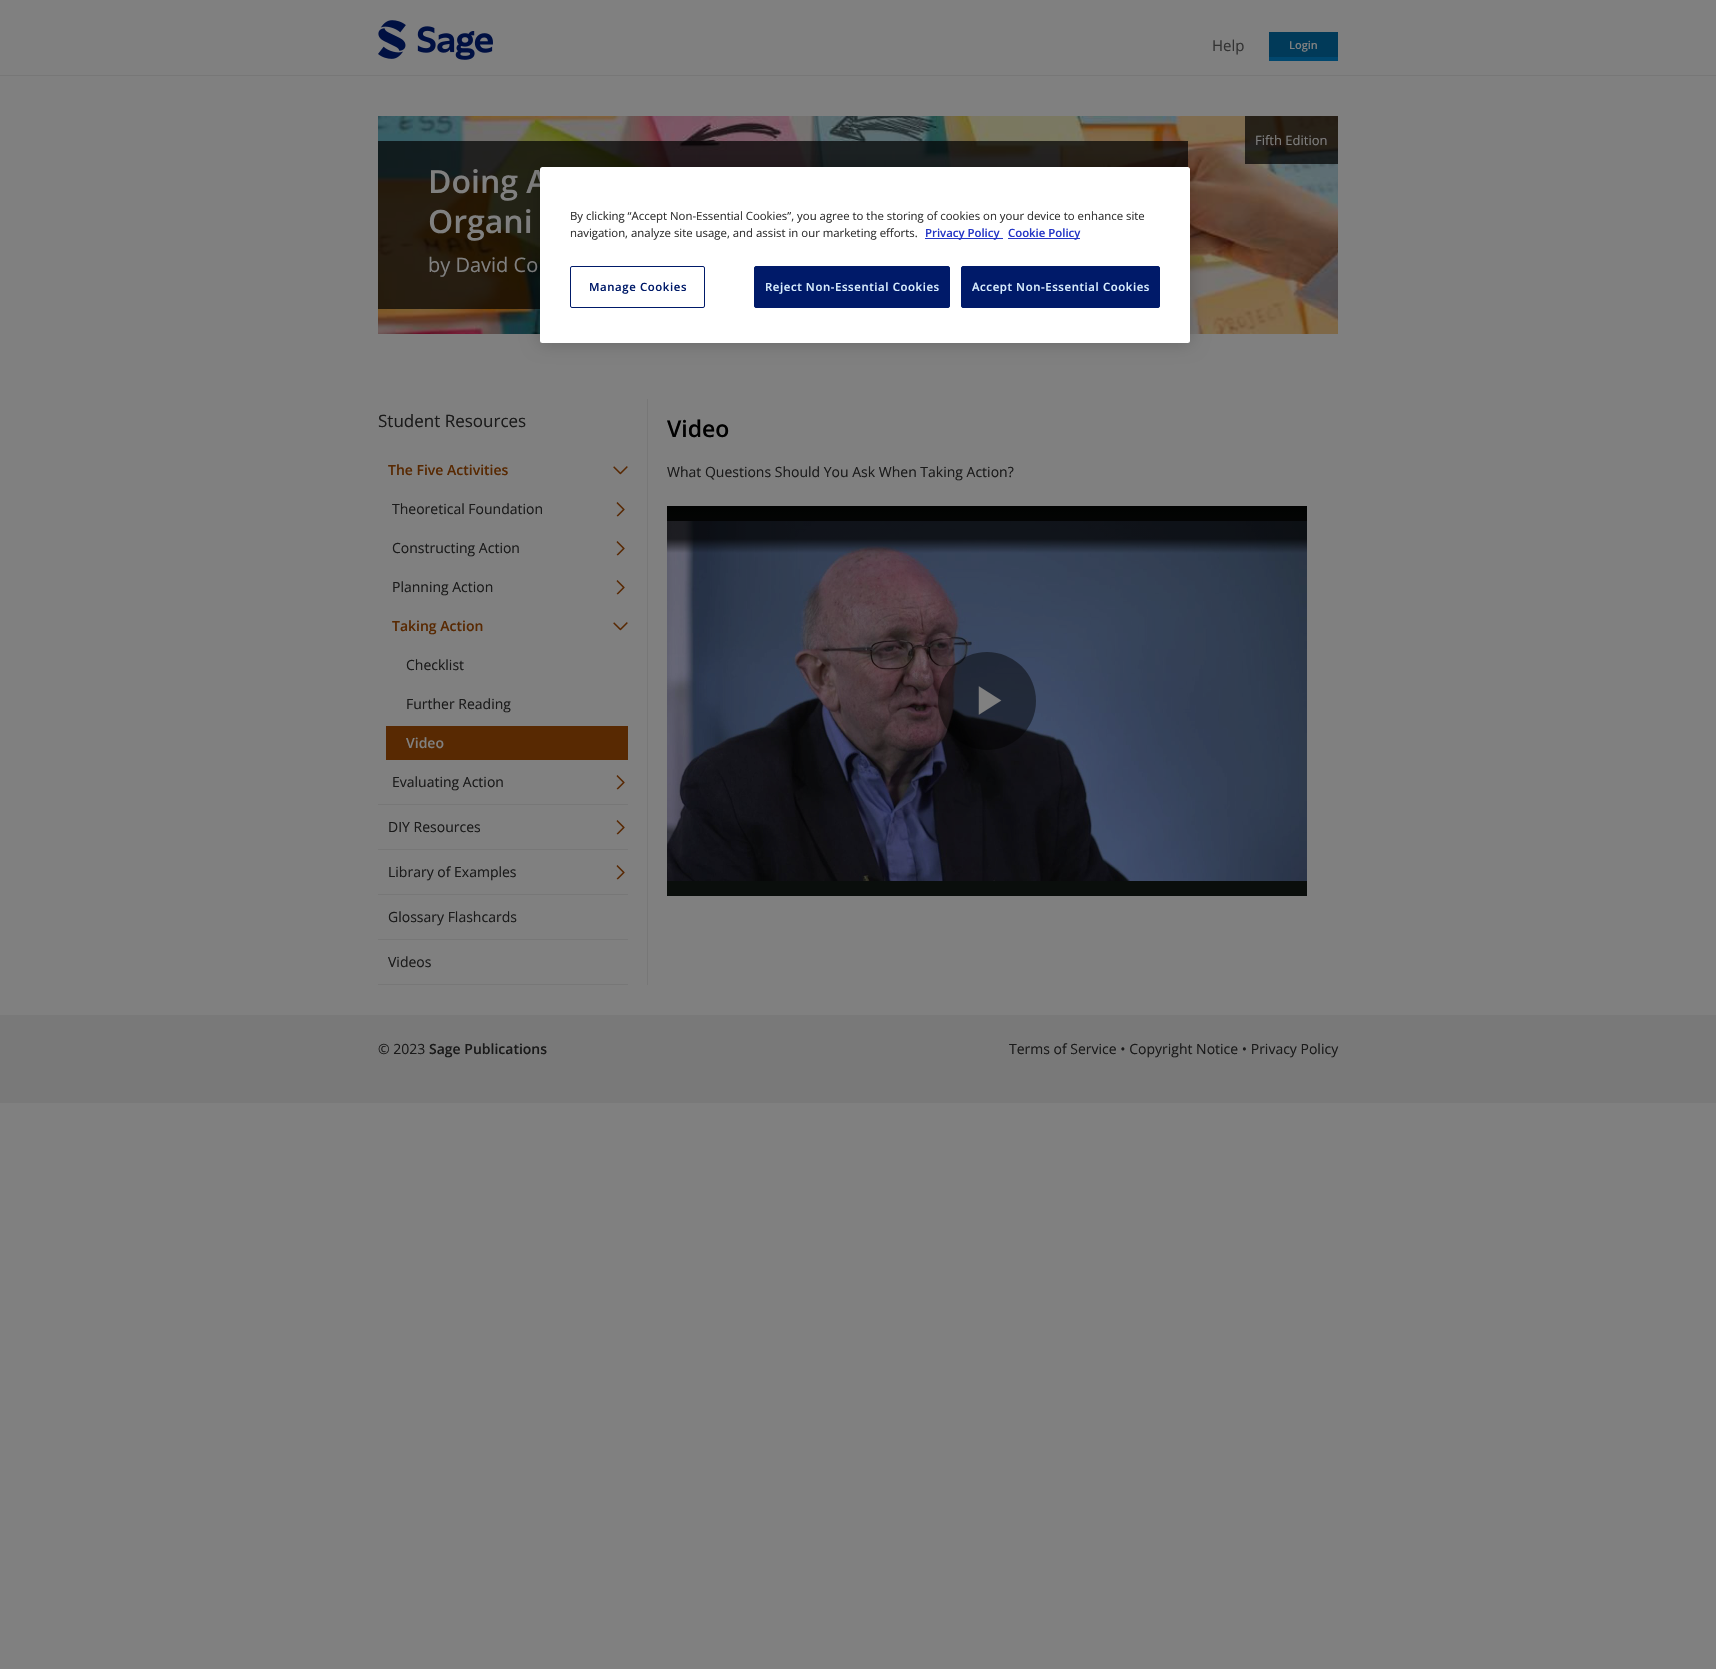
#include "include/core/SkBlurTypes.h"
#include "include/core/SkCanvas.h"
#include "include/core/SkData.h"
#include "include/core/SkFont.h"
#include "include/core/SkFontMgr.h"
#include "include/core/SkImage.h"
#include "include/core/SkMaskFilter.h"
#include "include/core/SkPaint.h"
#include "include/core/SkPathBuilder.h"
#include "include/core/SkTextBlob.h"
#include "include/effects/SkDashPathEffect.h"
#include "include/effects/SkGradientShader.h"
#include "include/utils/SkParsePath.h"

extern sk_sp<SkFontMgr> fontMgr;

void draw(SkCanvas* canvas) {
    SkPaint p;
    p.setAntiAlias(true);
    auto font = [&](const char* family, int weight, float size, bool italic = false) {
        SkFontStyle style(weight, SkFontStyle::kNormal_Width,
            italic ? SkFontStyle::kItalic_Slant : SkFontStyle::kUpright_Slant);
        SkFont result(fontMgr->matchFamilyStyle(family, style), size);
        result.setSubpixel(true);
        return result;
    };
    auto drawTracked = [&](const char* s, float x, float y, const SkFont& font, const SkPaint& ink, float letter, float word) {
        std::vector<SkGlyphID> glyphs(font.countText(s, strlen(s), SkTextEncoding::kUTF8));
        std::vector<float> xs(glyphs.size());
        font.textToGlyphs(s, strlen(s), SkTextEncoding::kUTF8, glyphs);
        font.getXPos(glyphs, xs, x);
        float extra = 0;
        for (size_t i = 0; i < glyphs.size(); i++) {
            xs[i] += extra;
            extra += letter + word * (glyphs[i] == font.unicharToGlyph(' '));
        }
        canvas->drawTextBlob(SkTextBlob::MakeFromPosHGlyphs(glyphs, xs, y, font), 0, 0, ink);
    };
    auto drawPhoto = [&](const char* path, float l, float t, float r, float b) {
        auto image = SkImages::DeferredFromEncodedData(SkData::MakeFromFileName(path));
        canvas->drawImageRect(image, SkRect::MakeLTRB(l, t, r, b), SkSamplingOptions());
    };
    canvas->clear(0xFF808080);
    p.setColor(0xFF777777);
    canvas->drawRect(SkRect::MakeLTRB(0, 75, 1716, 76), p);
    drawPhoto("media/1.png", 378, 20, 493, 60);
    auto font1 = font("Open Sans", 400, 15);
    p.setColor(0xFF333333);
    canvas->drawString("Help", 1212, 51, font1, p);
    p.setColor(0xFF013A59);
    canvas->drawRect(SkRect::MakeLTRB(1269, 32, 1338, 57), p);
    auto font2 = font("Open Sans", 600, 11);
    p.setColor(0xFF808080);
    canvas->drawString("Login", 1289, 49, font2, p);
    p.setColor(0xFF01476E);
    canvas->drawRect(SkRect::MakeLTRB(1269, 57, 1338, 61), p);
    drawPhoto("media/2.png", 378, 116, 1338, 334);
    p.setColor(0xB3000000);
    canvas->drawRect(SkRect::MakeLTRB(378, 141, 1188, 309), p);
    canvas->drawRect(SkRect::MakeLTRB(1245, 116, 1338, 164), p);
    auto font3 = font("Open Sans", 400, 13);
    p.setColor(0xFF808080);
    canvas->drawString("Fifth Edition", 1255, 145, font3, p);
    auto font4 = font("Open Sans", 600, 32);
    canvas->drawString("Doing A", 428, 193, font4, p);
    canvas->drawString("Organi", 428, 233, font4, p);
    auto font5 = font("Open Sans", 400, 20);
    canvas->drawString("by David Co", 428, 272, font5, p);
    auto font6 = font("Open Sans", 400, 17);
    p.setColor(0xFF1A1A1A);
    canvas->drawString("Student Resources", 378, 427, font6, p);
    p.setColor(0xFF777777);
    canvas->drawRect(SkRect::MakeLTRB(378, 804, 628, 805), p);
    auto font7 = font("Open Sans", 600, 14);
    p.setColor(0xFF582902);
    canvas->drawString("The Five Activities", 388, 475, font7, p);
    drawPhoto("media/3.png", 613, 466, 628, 475);
    auto font8 = font("Open Sans", 400, 14);
    p.setColor(0xFF1A1A1A);
    canvas->drawString("Theoretical Foundation", 392, 514, font8, p);
    drawPhoto("media/4.png", 616, 502, 625, 517);
    canvas->drawString("Constructing Action", 392, 553, font8, p);
    drawPhoto("media/4.png", 616, 541, 625, 556);
    canvas->drawString("Planning Action", 392, 592, font8, p);
    drawPhoto("media/4.png", 616, 580, 625, 595);
    p.setColor(0xFF582902);
    canvas->drawString("Taking Action", 392, 631, font7, p);
    drawPhoto("media/3.png", 613, 622, 628, 631);
    p.setColor(0xFF1A1A1A);
    canvas->drawString("Checklist", 406, 670, font8, p);
    canvas->drawString("Further Reading", 406, 709, font8, p);
    p.setColor(0xFF582902);
    canvas->drawRect(SkRect::MakeLTRB(386, 726, 628, 760), p);
    p.setColor(0xFF808080);
    canvas->drawString("Video", 406, 748, font7, p);
    p.setColor(0xFF1A1A1A);
    canvas->drawString("Evaluating Action", 392, 787, font8, p);
    drawPhoto("media/4.png", 616, 775, 625, 790);
    p.setColor(0xFF777777);
    canvas->drawRect(SkRect::MakeLTRB(378, 849, 628, 850), p);
    p.setColor(0xFF1A1A1A);
    canvas->drawString("DIY Resources", 388, 832, font8, p);
    drawPhoto("media/4.png", 616, 820, 625, 835);
    p.setColor(0xFF777777);
    canvas->drawRect(SkRect::MakeLTRB(378, 894, 628, 895), p);
    p.setColor(0xFF1A1A1A);
    canvas->drawString("Library of Examples", 388, 877, font8, p);
    drawPhoto("media/4.png", 616, 865, 625, 880);
    p.setColor(0xFF777777);
    canvas->drawRect(SkRect::MakeLTRB(378, 939, 628, 940), p);
    p.setColor(0xFF1A1A1A);
    canvas->drawString("Glossary Flashcards", 388, 922, font8, p);
    p.setColor(0xFF777777);
    canvas->drawRect(SkRect::MakeLTRB(378, 984, 628, 985), p);
    p.setColor(0xFF1A1A1A);
    canvas->drawString("Videos", 388, 967, font8, p);
    p.setColor(0xFF777777);
    canvas->drawRect(SkRect::MakeLTRB(647, 399, 648, 985), p);
    auto font9 = font("Open Sans", 600, 23);
    p.setColor(0xFF000000);
    canvas->drawString("Video", 667, 437, font9, p);
    p.setColor(0xFF1A1A1A);
    canvas->drawString("What Questions Should You Ask When Taking Action?", 667, 477, font8, p);
    drawPhoto("media/5.png", 667, 506, 1307, 896);
    p.setColor(0x33000000);
    p.setMaskFilter(SkMaskFilter::MakeBlur(kNormal_SkBlurStyle, 9));
    canvas->drawRoundRect(SkRect::MakeLTRB(540, 167, 1190, 343), 2.5f, 2.5f, p);
    p.setMaskFilter(nullptr);
    p.setColor(0xFFFFFFFF);
    canvas->drawRoundRect(SkRect::MakeLTRB(540, 167, 1190, 343), 2.5f, 2.5f, p);
    auto font10 = font("Open Sans", 400, 11.38f);
    p.setColor(0xFF333333);
    canvas->drawString("By clicking “Accept Non-Essential Cookies”, you agree to the storing of cookies on your device to enhance site", 570, 220, font10, p);
    canvas->drawString("navigation, analyze site usage, and assist in our marketing efforts.", 570, 237, font10, p);
    p.setColor(0xFF2537C6);
    canvas->drawRect(SkRect::MakeLTRB(925, 238, 1003, 239), p);
    auto font11 = font("Open Sans", 600, 11.38f);
    canvas->drawString("Privacy Policy", 925, 237, font11, p);
    canvas->drawRect(SkRect::MakeLTRB(1008, 238, 1080, 239), p);
    canvas->drawString("Cookie Policy", 1008, 237, font11, p);
    p.setStyle(SkPaint::kStroke_Style);
    p.setStrokeWidth(1);
    p.setColor(0xFF001A69);
    canvas->drawRoundRect(SkRect::MakeLTRB(570.5f, 266.5f, 704.5f, 307.5f), 1.5f, 1.5f, p);
    p.setStyle(SkPaint::kFill_Style);
    drawTracked("Manage Cookies", 589, 291, font11, p, 0.6f, 0);
    canvas->drawRoundRect(SkRect::MakeLTRB(754.5f, 266.5f, 949.5f, 307.5f), 1.5f, 1.5f, p);
    p.setStyle(SkPaint::kStroke_Style);
    canvas->drawRoundRect(SkRect::MakeLTRB(754.5f, 266.5f, 949.5f, 307.5f), 1.5f, 1.5f, p);
    p.setStyle(SkPaint::kFill_Style);
    p.setColor(0xFFD9EEFF);
    drawTracked("Reject Non-Essential Cookies", 765, 291, font11, p, 0.6f, 0);
    p.setColor(0xFF001A69);
    canvas->drawRoundRect(SkRect::MakeLTRB(961.5f, 266.5f, 1159.5f, 307.5f), 1.5f, 1.5f, p);
    p.setStyle(SkPaint::kStroke_Style);
    canvas->drawRoundRect(SkRect::MakeLTRB(961.5f, 266.5f, 1159.5f, 307.5f), 1.5f, 1.5f, p);
    p.setStyle(SkPaint::kFill_Style);
    p.setColor(0xFFD9EEFF);
    drawTracked("Accept Non-Essential Cookies", 972, 291, font11, p, 0.6f, 0);
    p.setColor(0xFF797979);
    canvas->drawRect(SkRect::MakeLTRB(0, 1015, 1716, 1103), p);
    p.setColor(0xFF1A1A1A);
    canvas->drawString("© 2023", 378, 1054, font8, p);
    canvas->drawString("Sage Publications", 429, 1054, font7, p);
    canvas->drawString("Terms of Service • Copyright Notice • Privacy Policy", 1009, 1054, font8, p);
}
